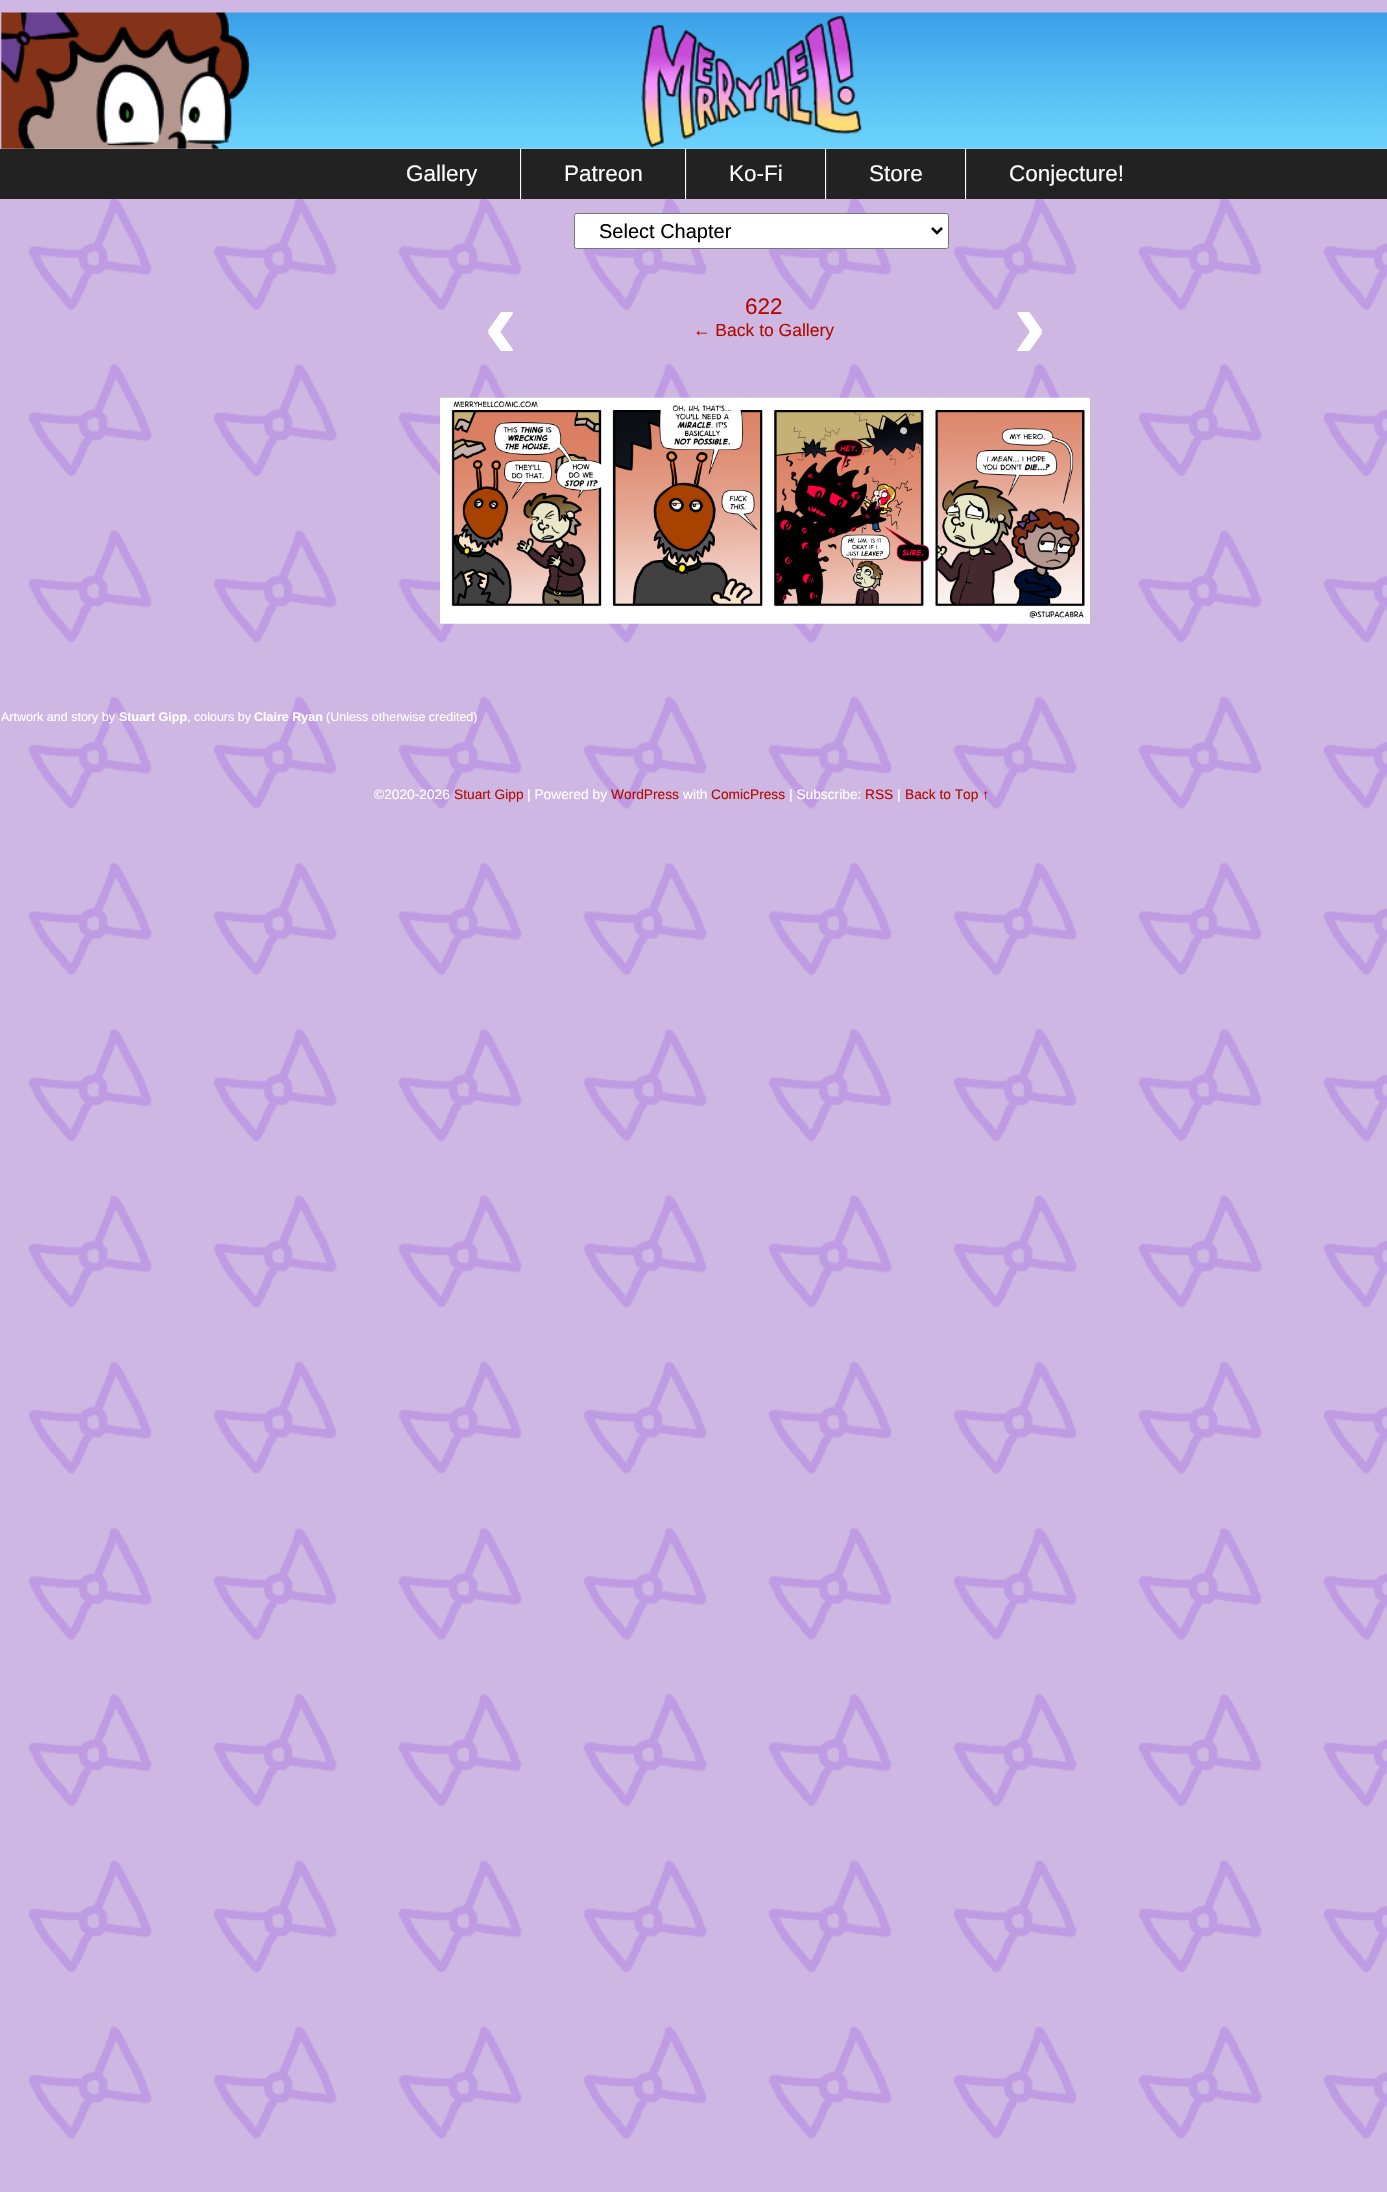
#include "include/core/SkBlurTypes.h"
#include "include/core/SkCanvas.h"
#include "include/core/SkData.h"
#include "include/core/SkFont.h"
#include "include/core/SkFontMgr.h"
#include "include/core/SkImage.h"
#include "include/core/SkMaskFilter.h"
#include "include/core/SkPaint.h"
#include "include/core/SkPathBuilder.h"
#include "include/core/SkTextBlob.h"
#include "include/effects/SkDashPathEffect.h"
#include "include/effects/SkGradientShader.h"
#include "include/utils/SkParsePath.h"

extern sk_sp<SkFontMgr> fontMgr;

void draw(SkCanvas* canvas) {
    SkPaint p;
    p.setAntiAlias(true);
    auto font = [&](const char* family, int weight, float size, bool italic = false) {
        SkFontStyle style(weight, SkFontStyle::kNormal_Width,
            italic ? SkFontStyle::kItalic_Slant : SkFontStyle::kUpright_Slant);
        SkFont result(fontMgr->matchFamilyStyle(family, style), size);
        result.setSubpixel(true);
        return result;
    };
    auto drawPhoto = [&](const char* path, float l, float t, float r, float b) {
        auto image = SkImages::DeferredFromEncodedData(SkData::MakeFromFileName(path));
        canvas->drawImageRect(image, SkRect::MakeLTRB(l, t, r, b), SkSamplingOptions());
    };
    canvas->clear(0xFFFFFFFF);
    drawPhoto("media/1.png", 0, 0, 1387, 2192);
    p.setColor(0xFFF4F4F4);
    canvas->drawRect(SkRect::MakeLTRB(1, 13, 1387, 149), p);
    drawPhoto("media/2.png", 1, 12, 1387, 149);
    p.setColor(0xFF222222);
    canvas->drawRect(SkRect::MakeLTRB(0, 149, 1387, 199), p);
    auto font1 = font("Liberation Sans", 400, 22.5f);
    p.setColor(0xFFFFFFFF);
    canvas->drawString("Gallery", 406, 181, font1, p);
    p.setColor(0xFF383838);
    canvas->drawRect(SkRect::MakeLTRB(521, 149, 522, 199), p);
    p.setColor(0xFFFFFFFF);
    canvas->drawRect(SkRect::MakeLTRB(520, 149, 521, 199), p);
    canvas->drawString("Patreon", 564, 181, font1, p);
    p.setColor(0xFF383838);
    canvas->drawRect(SkRect::MakeLTRB(686, 149, 687, 199), p);
    p.setColor(0xFFFFFFFF);
    canvas->drawRect(SkRect::MakeLTRB(685, 149, 686, 199), p);
    canvas->drawString("Ko-Fi", 729, 181, font1, p);
    p.setColor(0xFF383838);
    canvas->drawRect(SkRect::MakeLTRB(826, 149, 827, 199), p);
    p.setColor(0xFFFFFFFF);
    canvas->drawRect(SkRect::MakeLTRB(825, 149, 826, 199), p);
    canvas->drawString("Store", 869, 181, font1, p);
    p.setColor(0xFF383838);
    canvas->drawRect(SkRect::MakeLTRB(966, 149, 967, 199), p);
    p.setColor(0xFFFFFFFF);
    canvas->drawRect(SkRect::MakeLTRB(965, 149, 966, 199), p);
    canvas->drawString("Conjecture!", 1009, 181, font1, p);
    canvas->drawRoundRect(SkRect::MakeLTRB(574.5f, 213.5f, 948.5f, 248.5f), 2, 2, p);
    p.setStyle(SkPaint::kStroke_Style);
    p.setStrokeWidth(1);
    p.setColor(0xFF767676);
    canvas->drawRoundRect(SkRect::MakeLTRB(574.5f, 213.5f, 948.5f, 248.5f), 2, 2, p);
    p.setStrokeWidth(2.5f);
    p.setColor(0xFF000000);
    canvas->drawPath(SkPathBuilder().moveTo(932, 228).lineTo(937, 233).lineTo(942, 228).detach(), p);
    auto font2 = font("Liberation Sans", 400, 20);
    p.setStyle(SkPaint::kFill_Style);
    canvas->drawString("Select Chapter", 599, 238, font2, p);
    auto font3 = font("Liberation Sans", 700, 100);
    p.setColor(0xFFFFFFFF);
    canvas->drawString("‹", 484, 358, font3, p);
    p.setColor(0xFFB00B00);
    canvas->drawString("622", 745, 314, font1, p);
    auto font4 = font("Liberation Sans", 400, 17.5f);
    canvas->drawString("← Back to Gallery", 693, 336, font4, p);
    p.setColor(0xFFFFFFFF);
    canvas->drawString("›", 1013, 358, font3, p);
    drawPhoto("media/3.png", 440, 397, 1090, 624);
    auto font5 = font("Liberation Sans", 400, 12.5f);
    canvas->drawString("Artwork and story by", 1, 721, font5, p);
    auto font6 = font("Liberation Sans", 700, 12.5f);
    canvas->drawString("Stuart Gipp", 119, 721, font6, p);
    canvas->drawString(", colours by", 187, 721, font5, p);
    canvas->drawString("Claire Ryan", 254, 721, font6, p);
    canvas->drawString("(Unless otherwise credited)", 326, 721, font5, p);
    auto font7 = font("Liberation Sans", 400, 13.75f);
    canvas->drawString("©2020-2026", 374, 799, font7, p);
    p.setColor(0xFFB00B00);
    canvas->drawString("Stuart Gipp", 454, 799, font7, p);
    p.setColor(0xFFFFFFFF);
    canvas->drawString("| Powered by", 527, 799, font7, p);
    p.setColor(0xFFB00B00);
    canvas->drawString("WordPress", 611, 799, font7, p);
    p.setColor(0xFFFFFFFF);
    canvas->drawString("with", 683, 799, font7, p);
    p.setColor(0xFFB00B00);
    canvas->drawString("ComicPress", 711, 799, font7, p);
    p.setColor(0xFFFFFFFF);
    canvas->drawString("| Subscribe:", 789, 799, font7, p);
    p.setColor(0xFFB00B00);
    canvas->drawString("RSS", 865, 799, font7, p);
    p.setColor(0xFFFFFFFF);
    canvas->drawString("|", 897, 799, font7, p);
    p.setColor(0xFFB00B00);
    canvas->drawString("Back to Top ↑", 905, 799, font7, p);
}
